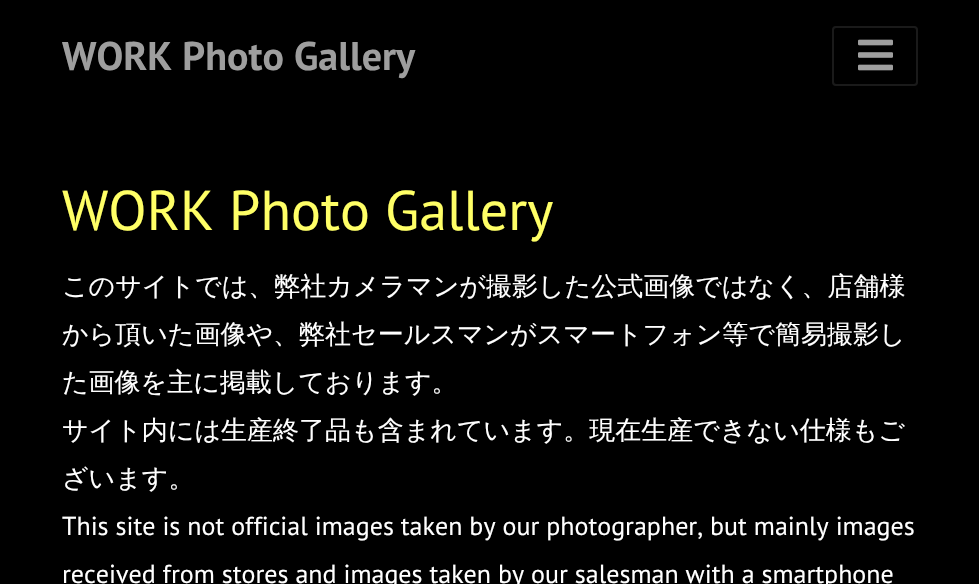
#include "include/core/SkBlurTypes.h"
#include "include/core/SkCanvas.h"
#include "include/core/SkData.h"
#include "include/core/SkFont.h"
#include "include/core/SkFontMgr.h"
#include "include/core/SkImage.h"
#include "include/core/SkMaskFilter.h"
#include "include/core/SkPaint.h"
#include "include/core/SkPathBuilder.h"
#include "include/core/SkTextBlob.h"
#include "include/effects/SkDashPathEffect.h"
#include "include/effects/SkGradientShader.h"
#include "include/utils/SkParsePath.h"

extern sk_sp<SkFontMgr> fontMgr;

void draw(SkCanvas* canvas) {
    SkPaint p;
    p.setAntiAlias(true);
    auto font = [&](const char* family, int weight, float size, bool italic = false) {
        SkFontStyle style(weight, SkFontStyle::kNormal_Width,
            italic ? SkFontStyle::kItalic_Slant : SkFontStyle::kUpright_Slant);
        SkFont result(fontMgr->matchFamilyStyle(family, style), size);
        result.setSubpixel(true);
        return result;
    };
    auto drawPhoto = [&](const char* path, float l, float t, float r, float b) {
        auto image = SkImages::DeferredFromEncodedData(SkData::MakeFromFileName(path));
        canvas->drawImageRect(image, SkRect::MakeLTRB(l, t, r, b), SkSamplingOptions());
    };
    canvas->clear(0xFF000000);
    auto font1 = font("PT Sans", 700, 40);
    p.setColor(0xFF9E9E9E);
    canvas->drawString("WORK Photo Gallery", 62, 70, font1, p);
    p.setStyle(SkPaint::kStroke_Style);
    p.setStrokeWidth(2);
    p.setColor(0xFF1A1A1A);
    canvas->drawRoundRect(SkRect::MakeLTRB(833, 27, 917, 85), 3, 3, p);
    drawPhoto("media/1.png", 858, 39, 893, 71);
    auto font2 = font("PT Sans", 400, 56);
    p.setStyle(SkPaint::kFill_Style);
    p.setColor(0xFFFFFF66);
    canvas->drawString("WORK Photo Gallery", 62, 230, font2, p);
    auto font3 = font("WenQuanYi Zen Hei", 500, 26);
    p.setColor(0xFFFFFFFF);
    {
        const struct { const char* s; float x, y; } items[] = {
            {"このサイトでは、弊社カメラマンが撮影した公式画像ではなく、店舗様", 62, 295},
            {"から頂いた画像や、弊社セールスマンがスマートフォン等で簡易撮影し", 62, 343},
            {"た画像を主に掲載しております。", 62, 391},
            {"サイト内には生産終了品も含まれています。現在生産できない仕様もご", 62, 439},
            {"ざいます。", 62, 487},
        };
        for (auto [s, x, y] : items) {
            canvas->drawString(s, x, y, font3, p);
        }
    }
    auto font4 = font("PT Sans", 400, 26);
    canvas->drawString("This site is not official images taken by our photographer, but mainly images", 62, 535, font4, p);
    canvas->drawString("received from stores and images taken by our salesman with a smartphone", 62, 583, font4, p);
}
